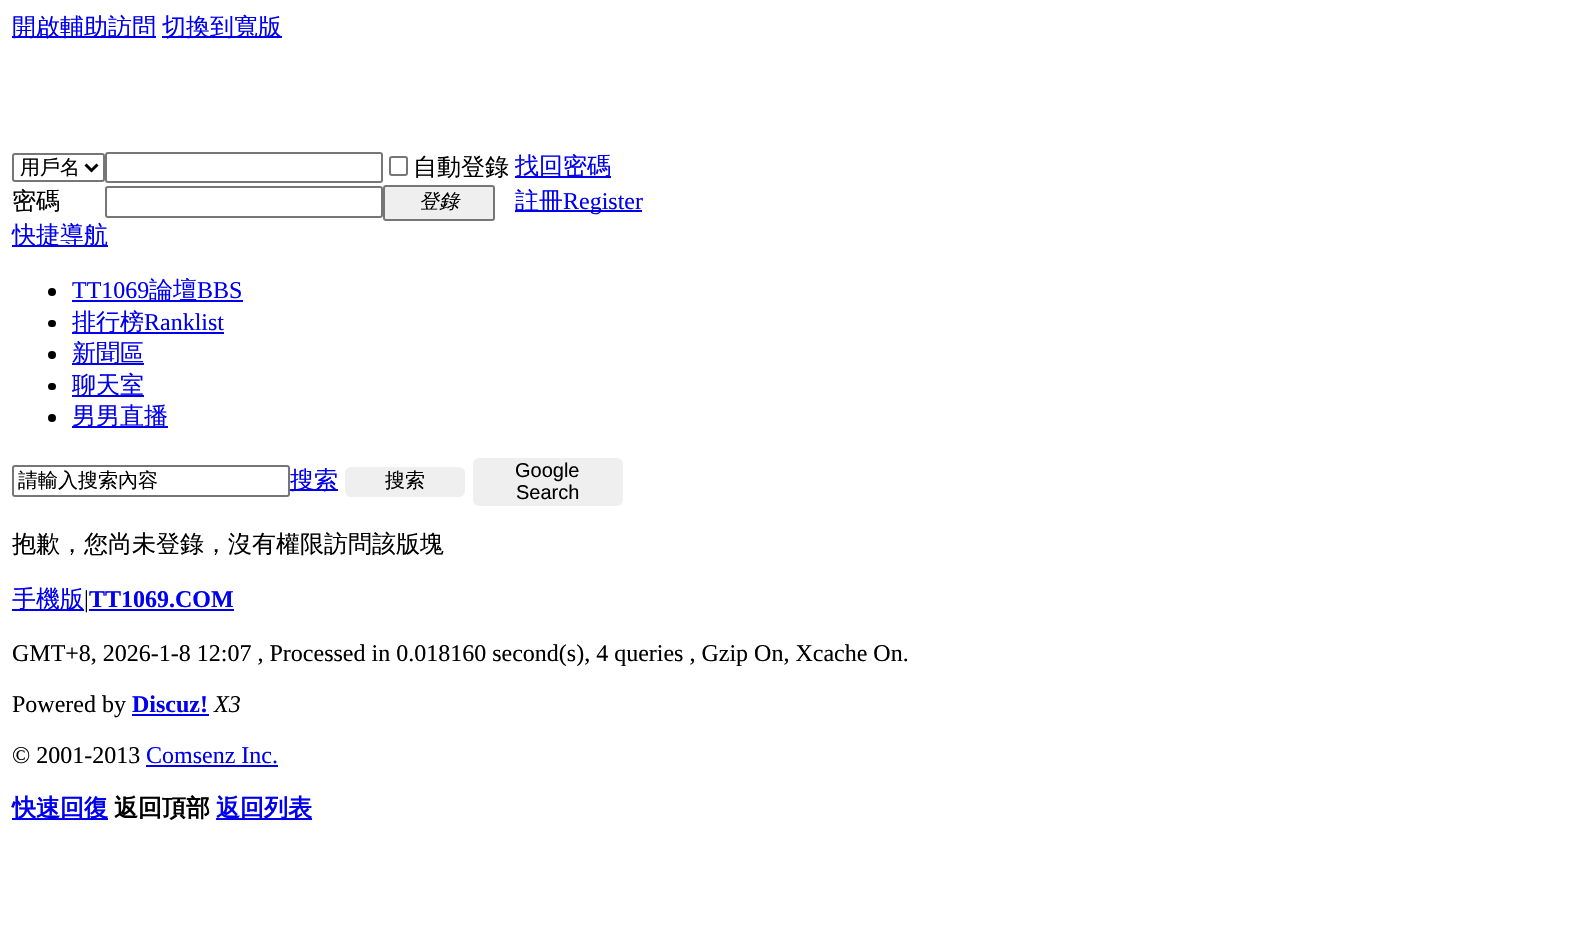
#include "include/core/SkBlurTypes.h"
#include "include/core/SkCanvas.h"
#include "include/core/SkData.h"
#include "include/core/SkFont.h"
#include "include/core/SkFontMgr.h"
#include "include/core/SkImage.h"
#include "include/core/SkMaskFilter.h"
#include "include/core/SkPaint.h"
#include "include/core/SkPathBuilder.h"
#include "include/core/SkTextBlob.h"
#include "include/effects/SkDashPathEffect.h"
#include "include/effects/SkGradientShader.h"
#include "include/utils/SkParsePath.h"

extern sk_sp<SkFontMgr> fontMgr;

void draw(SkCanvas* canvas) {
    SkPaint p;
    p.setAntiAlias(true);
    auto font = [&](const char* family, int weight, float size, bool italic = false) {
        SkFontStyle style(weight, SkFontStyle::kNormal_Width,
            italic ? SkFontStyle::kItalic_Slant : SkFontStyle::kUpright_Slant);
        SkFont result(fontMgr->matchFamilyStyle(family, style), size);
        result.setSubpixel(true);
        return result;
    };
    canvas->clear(0xFFFFFFFF);
    p.setColor(0xFF0000EE);
    canvas->drawRect(SkRect::MakeLTRB(12, 36, 156, 38), p);
    auto font1 = font("WenQuanYi Zen Hei", 500, 24);
    canvas->drawString("開啟輔助訪問", 12, 35, font1, p);
    canvas->drawRect(SkRect::MakeLTRB(162, 36, 282, 38), p);
    canvas->drawString("切換到寬版", 162, 35, font1, p);
    p.setStyle(SkPaint::kStroke_Style);
    p.setStrokeWidth(2);
    p.setColor(0xFF767676);
    canvas->drawRoundRect(SkRect::MakeLTRB(13, 154, 104, 181), 2, 2, p);
    p.setStrokeWidth(3);
    p.setColor(0xFF000000);
    canvas->drawPath(SkPathBuilder().moveTo(85.5f, 164.5f).lineTo(91.5f, 170.5f).lineTo(97.5f, 164.5f).detach(), p);
    auto font2 = font("WenQuanYi Zen Hei", 500, 20);
    p.setStyle(SkPaint::kFill_Style);
    canvas->drawString("用戶名", 20, 174, font2, p);
    p.setStyle(SkPaint::kStroke_Style);
    p.setStrokeWidth(2);
    p.setColor(0xFF767676);
    canvas->drawRoundRect(SkRect::MakeLTRB(106, 153, 382, 182), 2, 2, p);
    canvas->drawRoundRect(SkRect::MakeLTRB(390, 157, 407, 175), 2, 2, p);
    p.setStyle(SkPaint::kFill_Style);
    p.setColor(0xFF000000);
    canvas->drawString("自動登錄", 413, 175, font1, p);
    p.setColor(0xFF0000EE);
    canvas->drawRect(SkRect::MakeLTRB(515, 176, 611, 178), p);
    canvas->drawString("找回密碼", 515, 174, font1, p);
    p.setColor(0xFF000000);
    canvas->drawString("密碼", 12, 209, font1, p);
    p.setStyle(SkPaint::kStroke_Style);
    p.setColor(0xFF767676);
    canvas->drawRoundRect(SkRect::MakeLTRB(106, 187, 382, 217), 2, 2, p);
    p.setStyle(SkPaint::kFill_Style);
    p.setColor(0xFFEFEFEF);
    canvas->drawRoundRect(SkRect::MakeLTRB(384, 186, 494, 220), 2, 2, p);
    p.setStyle(SkPaint::kStroke_Style);
    p.setColor(0xFF767676);
    canvas->drawRoundRect(SkRect::MakeLTRB(384, 186, 494, 220), 2, 2, p);
    auto font3 = font("WenQuanYi Zen Hei", 500, 20, true);
    p.setStyle(SkPaint::kFill_Style);
    p.setColor(0xFF000000);
    canvas->drawString("登錄", 419, 208, font3, p);
    p.setColor(0xFF0000EE);
    canvas->drawRect(SkRect::MakeLTRB(515, 210, 642, 212), p);
    canvas->drawString("註冊", 515, 209, font1, p);
    auto font4 = font("Liberation Serif", 400, 24);
    canvas->drawString("Register", 563, 209, font4, p);
    canvas->drawRect(SkRect::MakeLTRB(12, 245, 108, 247), p);
    canvas->drawString("快捷導航", 12, 243, font1, p);
    p.setColor(0xFF000000);
    canvas->drawCircle(52, 292, 4, p);
    p.setColor(0xFF0000EE);
    canvas->drawString("TT1069", 72, 298, font4, p);
    canvas->drawRect(SkRect::MakeLTRB(72, 300, 243, 302), p);
    canvas->drawString("論壇", 149, 298, font1, p);
    canvas->drawString("BBS", 197, 298, font4, p);
    p.setColor(0xFF000000);
    canvas->drawRoundRect(SkRect::MakeLTRB(48, 320, 56, 327), 3.5f, 3.5f, p);
    p.setColor(0xFF0000EE);
    canvas->drawRect(SkRect::MakeLTRB(72, 332, 224, 334), p);
    canvas->drawString("排行榜", 72, 330, font1, p);
    canvas->drawString("Ranklist", 144, 330, font4, p);
    p.setColor(0xFF000000);
    canvas->drawCircle(52, 355, 4, p);
    p.setColor(0xFF0000EE);
    canvas->drawRect(SkRect::MakeLTRB(72, 363, 144, 365), p);
    canvas->drawString("新聞區", 72, 361, font1, p);
    p.setColor(0xFF000000);
    canvas->drawRoundRect(SkRect::MakeLTRB(48, 383, 56, 390), 3.5f, 3.5f, p);
    p.setColor(0xFF0000EE);
    canvas->drawRect(SkRect::MakeLTRB(72, 395, 144, 397), p);
    canvas->drawString("聊天室", 72, 393, font1, p);
    p.setColor(0xFF000000);
    canvas->drawCircle(52, 418, 4, p);
    p.setColor(0xFF0000EE);
    canvas->drawRect(SkRect::MakeLTRB(72, 426, 168, 428), p);
    canvas->drawString("男男直播", 72, 424, font1, p);
    p.setStyle(SkPaint::kStroke_Style);
    p.setColor(0xFF767676);
    canvas->drawRoundRect(SkRect::MakeLTRB(13, 466, 289, 496), 2, 2, p);
    p.setStyle(SkPaint::kFill_Style);
    p.setColor(0xFF000000);
    canvas->drawString("請輸入搜索內容", 18, 487, font2, p);
    p.setColor(0xFF0000EE);
    canvas->drawRect(SkRect::MakeLTRB(290, 489, 338, 491), p);
    canvas->drawString("搜索", 290, 488, font1, p);
    p.setColor(0xFFEFEFEF);
    canvas->drawRoundRect(SkRect::MakeLTRB(345, 467, 465, 497), 6, 6, p);
    p.setColor(0xFF000000);
    canvas->drawString("搜索", 385, 487, font2, p);
    p.setColor(0xFFEFEFEF);
    canvas->drawRoundRect(SkRect::MakeLTRB(473, 458, 623, 506), 6, 6, p);
    auto font5 = font("Liberation Sans", 400, 20);
    p.setColor(0xFF000000);
    canvas->drawString("Google", 515, 477, font5, p);
    canvas->drawString("Search", 516, 499, font5, p);
    canvas->drawString("抱歉，您尚未登錄，沒有權限訪問該版塊", 12, 552, font1, p);
    p.setColor(0xFF0000EE);
    canvas->drawRect(SkRect::MakeLTRB(12, 609, 84, 611), p);
    canvas->drawString("手機版", 12, 607, font1, p);
    p.setColor(0xFF000000);
    canvas->drawString("|", 84, 607, font4, p);
    auto font6 = font("Liberation Serif", 700, 24);
    p.setColor(0xFF0000EE);
    canvas->drawString("TT1069.COM", 89, 607, font6, p);
    canvas->drawRect(SkRect::MakeLTRB(89, 609, 234, 611), p);
    p.setColor(0xFF000000);
    canvas->drawString("GMT+8, 2026-1-8 12:07 , Processed in 0.018160 second(s), 4 queries , Gzip On, Xcache On.", 12, 661, font4, p);
    canvas->drawString("Powered by", 12, 712, font4, p);
    p.setColor(0xFF0000EE);
    canvas->drawString("Discuz!", 132, 712, font6, p);
    canvas->drawRect(SkRect::MakeLTRB(132, 714, 209, 716), p);
    auto font7 = font("Liberation Serif", 400, 24, true);
    p.setColor(0xFF000000);
    canvas->drawString("X3", 214, 712, font7, p);
    canvas->drawString("© 2001-2013", 12, 763, font4, p);
    p.setColor(0xFF0000EE);
    canvas->drawString("Comsenz Inc.", 146, 763, font4, p);
    canvas->drawRect(SkRect::MakeLTRB(146, 765, 278, 767), p);
    canvas->drawRect(SkRect::MakeLTRB(12, 818, 108, 820), p);
    auto font8 = font("WenQuanYi Zen Hei", 700, 24);
    canvas->drawString("快速回復", 12, 816, font8, p);
    p.setColor(0xFF000000);
    canvas->drawString("返回頂部", 114, 816, font8, p);
    p.setColor(0xFF0000EE);
    canvas->drawRect(SkRect::MakeLTRB(216, 818, 312, 820), p);
    canvas->drawString("返回列表", 216, 816, font8, p);
}
